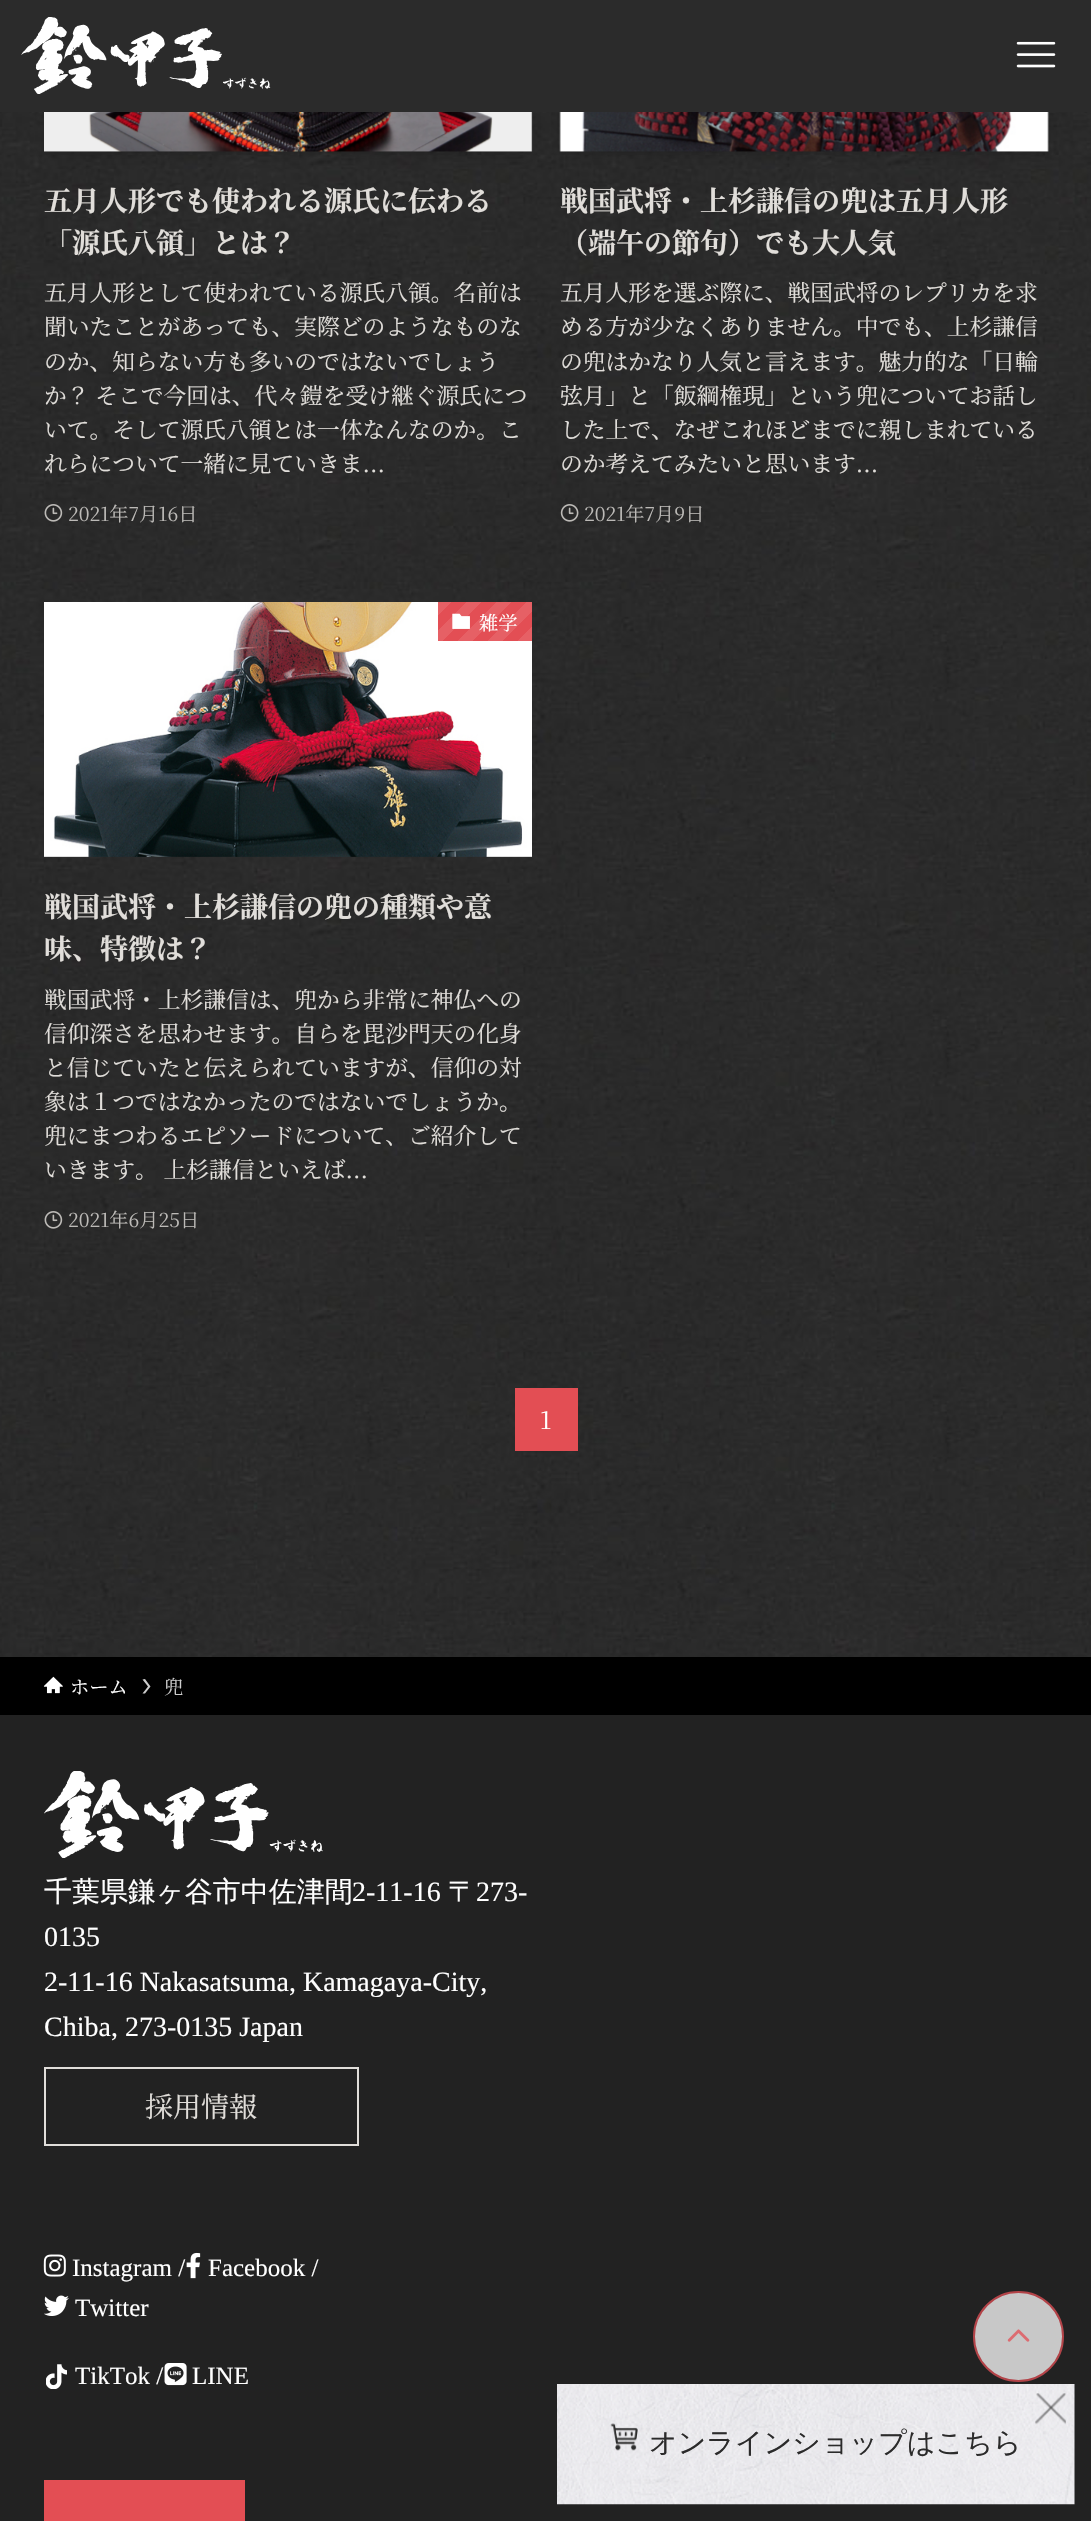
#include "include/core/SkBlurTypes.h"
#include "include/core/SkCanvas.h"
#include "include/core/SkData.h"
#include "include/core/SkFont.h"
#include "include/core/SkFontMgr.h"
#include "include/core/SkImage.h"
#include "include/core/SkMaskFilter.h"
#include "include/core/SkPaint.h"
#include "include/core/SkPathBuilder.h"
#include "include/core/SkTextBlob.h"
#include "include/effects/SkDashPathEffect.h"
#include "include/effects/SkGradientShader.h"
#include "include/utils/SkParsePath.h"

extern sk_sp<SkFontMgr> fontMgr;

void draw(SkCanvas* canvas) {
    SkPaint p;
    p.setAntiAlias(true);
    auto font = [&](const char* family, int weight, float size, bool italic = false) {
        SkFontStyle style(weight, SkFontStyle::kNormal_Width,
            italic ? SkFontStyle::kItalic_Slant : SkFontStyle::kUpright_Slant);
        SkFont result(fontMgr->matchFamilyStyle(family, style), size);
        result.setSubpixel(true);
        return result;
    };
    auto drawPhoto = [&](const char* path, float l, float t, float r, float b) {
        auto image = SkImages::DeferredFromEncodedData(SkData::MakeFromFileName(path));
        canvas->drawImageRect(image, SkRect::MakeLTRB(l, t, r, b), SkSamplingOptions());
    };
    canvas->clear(0xFFFFFFFF);
    drawPhoto("media/1.png", 0, 112, 1091, 1657);
    p.setColor(0x1A000000);
    p.setMaskFilter(SkMaskFilter::MakeBlur(kNormal_SkBlurStyle, 3.5f));
    canvas->drawRect(SkRect::MakeLTRB(51, -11, 525, 152), p);
    p.setMaskFilter(nullptr);
    p.setMaskFilter(SkMaskFilter::MakeBlur(kNormal_SkBlurStyle, 7));
    canvas->drawRect(SkRect::MakeLTRB(44, -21, 532, 156), p);
    p.setMaskFilter(nullptr);
    p.setMaskFilter(SkMaskFilter::MakeBlur(kNormal_SkBlurStyle, 3.5f));
    canvas->drawRect(SkRect::MakeLTRB(567, -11, 1041, 152), p);
    p.setMaskFilter(nullptr);
    p.setMaskFilter(SkMaskFilter::MakeBlur(kNormal_SkBlurStyle, 7));
    canvas->drawRect(SkRect::MakeLTRB(560, -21, 1048, 156), p);
    p.setMaskFilter(nullptr);
    p.setColor(0xFF2B2B2B);
    canvas->drawRect(SkRect::MakeLTRB(0, 0, 1091, 112), p);
    drawPhoto("media/2.png", 21, 17, 271, 94);
    drawPhoto("media/3.png", 1016, 41, 1056, 68);
    drawPhoto("media/4.png", 44, 112, 533, 152);
    auto font1 = font("Noto Serif JP", 700, 28);
    p.setColor(0xFFE1DEDA);
    canvas->drawString("五月人形でも使われる源氏に伝わる", 44, 211, font1, p);
    canvas->drawString("「源氏八領」とは？", 44, 253, font1, p);
    auto font2 = font("Noto Serif JP", 400, 22.75f);
    {
        const struct { const char* s; float x, y; } items[] = {
            {"五月人形として使われている源氏八領。名前は", 44, 301},
            {"聞いたことがあっても、実際どのようなものな", 44, 335},
            {"のか、知らない方も多いのではないでしょう", 44, 370},
            {"か？ そこで今回は、代々鎧を受け継ぐ源氏につ", 44, 404},
            {"いて。そして源氏八領とは一体なんなのか。こ", 44, 438},
            {"れらについて一緒に見ていきま...", 44, 472},
        };
        for (auto [s, x, y] : items) {
            canvas->drawString(s, x, y, font2, p);
        }
    }
    drawPhoto("media/5.png", 44, 504, 63, 522);
    auto font3 = font("Noto Serif JP", 400, 19.25f);
    p.setColor(0xFFBCBAB7);
    canvas->drawString("2021年7月16日", 68, 521, font3, p);
    drawPhoto("media/6.png", 559, 112, 1049, 152);
    p.setColor(0xFFE1DEDA);
    canvas->drawString("戦国武将・上杉謙信の兜は五月人形", 560, 211, font1, p);
    canvas->drawString("（端午の節句）でも大人気", 560, 253, font1, p);
    {
        const struct { const char* s; float x, y; } items[] = {
            {"五月人形を選ぶ際に、戦国武将のレプリカを求", 560, 301},
            {"める方が少なくありません。中でも、上杉謙信", 560, 335},
            {"の兜はかなり人気と言えます。魅力的な「日輪", 560, 370},
            {"弦月」と「飯綱権現」という兜についてお話し", 560, 404},
            {"した上で、なぜこれほどまでに親しまれている", 560, 438},
            {"のか考えてみたいと思います...", 560, 472},
        };
        for (auto [s, x, y] : items) {
            canvas->drawString(s, x, y, font2, p);
        }
    }
    drawPhoto("media/7.png", 560, 504, 579, 522);
    p.setColor(0xFFBCBAB7);
    canvas->drawString("2021年7月9日", 584, 521, font3, p);
    drawPhoto("media/8.png", 44, 602, 532, 857);
    {
        const SkColor colors[] = {0xFFE66065, 0xFFE66065, 0xFFE34E54, 0xFFE34E54, 0xFFE66065, 0xFFE66065, 0xFFE34E54, 0xFFE34E54, 0xFFE66065, 0xFFE66065, 0xFFE34E54, 0xFFE34E54, 0xFFE66065, 0xFFE66065, 0xFFE34E54, 0xFFE34E54, 0xFFE66065, 0xFFE66065, 0xFFE34E54, 0xFFE34E54};
        const float stops[] = {0, 0.1f, 0.1f, 0.2f, 0.2f, 0.3f, 0.3f, 0.4f, 0.4f, 0.5f, 0.5f, 0.6f, 0.6f, 0.7f, 0.7f, 0.8f, 0.8f, 0.9f, 0.9f, 1};
        const SkPoint ends[] = {{518, 655}, {444, 580}};
        p.setShader(SkGradientShader::MakeLinear(ends, colors, stops, 20, SkTileMode::kClamp));
        p.setAlpha(255);
    }
    canvas->drawRect(SkRect::MakeLTRB(438, 602, 532, 641), p);
    drawPhoto("media/9.png", 452, 613, 470, 629);
    p.setShader(nullptr);
    p.setColor(0xFFFFFFFF);
    canvas->drawString("雑学", 479, 630, font3, p);
    p.setColor(0xFFE1DEDA);
    canvas->drawString("戦国武将・上杉謙信の兜の種類や意", 44, 917, font1, p);
    canvas->drawString("味、特徴は？", 44, 959, font1, p);
    {
        const struct { const char* s; float x, y; } items[] = {
            {"戦国武将・上杉謙信は、兜から非常に神仏への", 44, 1008},
            {"信仰深さを思わせます。自らを毘沙門天の化身", 44, 1042},
            {"と信じていたと伝えられていますが、信仰の対", 44, 1076},
            {"象は１つではなかったのではないでしょうか。", 44, 1110},
            {"兜にまつわるエピソードについて、ご紹介して", 44, 1144},
            {"いきます。 上杉謙信といえば...", 44, 1178},
        };
        for (auto [s, x, y] : items) {
            canvas->drawString(s, x, y, font2, p);
        }
    }
    drawPhoto("media/10.png", 44, 1211, 63, 1229);
    p.setColor(0xFFBCBAB7);
    canvas->drawString("2021年6月25日", 68, 1227, font3, p);
    p.setColor(0xFFE34E54);
    canvas->drawRect(SkRect::MakeLTRB(515, 1388, 578, 1451), p);
    auto font4 = font("Noto Serif JP", 400, 24);
    p.setColor(0xFFFFFFFF);
    canvas->drawString("1", 540, 1429, font4, p);
    p.setColor(0xFF000000);
    canvas->drawRect(SkRect::MakeLTRB(0, 1657, 1091, 1715), p);
    drawPhoto("media/11.png", 43, 1676, 63, 1694);
    p.setColor(0xFFFFFFFF);
    canvas->drawString("ホーム", 70, 1694, font3, p);
    p.setColor(0xFFCCCCCC);
    canvas->drawPath(SkPathBuilder().moveTo(145, 1679).lineTo(142.5f, 1679.5f).lineTo(148, 1686.5f).lineTo(142.5f, 1693.5f).lineTo(145, 1693.5f).lineTo(150.5f, 1686.5f).close().detach(), p);
    canvas->drawString("兜", 164, 1694, font3, p);
    p.setColor(0xFF222222);
    canvas->drawRect(SkRect::MakeLTRB(0, 1715, 1091, 2521), p);
    drawPhoto("media/12.png", 44, 1771, 323, 1858);
    auto font5 = font("WenQuanYi Zen Hei", 500, 28);
    p.setColor(0xFFFFFFFF);
    canvas->drawString("千葉県鎌ヶ谷市中佐津間", 44, 1901, font5, p);
    auto font6 = font("Liberation Serif", 400, 28);
    canvas->drawString("2-11-16", 352, 1901, font6, p);
    canvas->drawString("〒", 448, 1901, font5, p);
    {
        const struct { const char* s; float x, y; } items[] = {
            {"273-", 476, 1901},
            {"0135", 44, 1946},
            {"2-11-16 Nakasatsuma, Kamagaya-City,", 44, 1991},
            {"Chiba, 273-0135 Japan", 44, 2036},
        };
        for (auto [s, x, y] : items) {
            canvas->drawString(s, x, y, font6, p);
        }
    }
    p.setStyle(SkPaint::kStroke_Style);
    p.setStrokeWidth(2);
    p.setColor(0xFFE1DEDA);
    canvas->drawRect(SkRect::MakeLTRB(45, 2068, 358, 2145), p);
    auto font7 = font("Noto Serif JP", 400, 28);
    p.setStyle(SkPaint::kFill_Style);
    canvas->drawString("採用情報", 145, 2117, font7, p);
    drawPhoto("media/13.png", 43, 2254, 66, 2277);
    auto font8 = font("Liberation Serif", 400, 25);
    p.setColor(0xFFFFFFFF);
    canvas->drawString("Instagram /", 72, 2276, font8, p);
    drawPhoto("media/14.png", 186, 2252, 201, 2279);
    canvas->drawString("Facebook /", 208, 2276, font8, p);
    drawPhoto("media/15.png", 44, 2295, 69, 2316);
    canvas->drawString("Twitter", 75, 2316, font8, p);
    drawPhoto("media/16.png", 46, 2364, 67, 2389);
    canvas->drawString("TikTok /", 75, 2384, font8, p);
    drawPhoto("media/17.png", 164, 2363, 187, 2386);
    canvas->drawString("LINE", 192, 2384, font8, p);
    p.setColor(0xFFE34E54);
    canvas->drawRect(SkRect::MakeLTRB(44, 2480, 245, 2521), p);
    p.setColor(0xFFC8C8C8);
    canvas->drawCircle(1018.5f, 2336.5f, 44.5f, p);
    p.setStyle(SkPaint::kStroke_Style);
    p.setColor(0xFFB34348);
    canvas->drawCircle(1018.5f, 2336.5f, 44.5f, p);
    drawPhoto("media/18.png", 1007, 2329, 1030, 2342);
    drawPhoto("media/20.png", 557, 2384, 1075, 2505);
    drawPhoto("media/19.png", 1035, 2393, 1066, 2425);
    drawPhoto("media/21.png", 610, 2423, 638, 2451);
    p.setStyle(SkPaint::kFill_Style);
    p.setColor(0xFF2B2B2B);
    canvas->drawString("オンラインショップはこちら", 649, 2452, font5, p);
}
